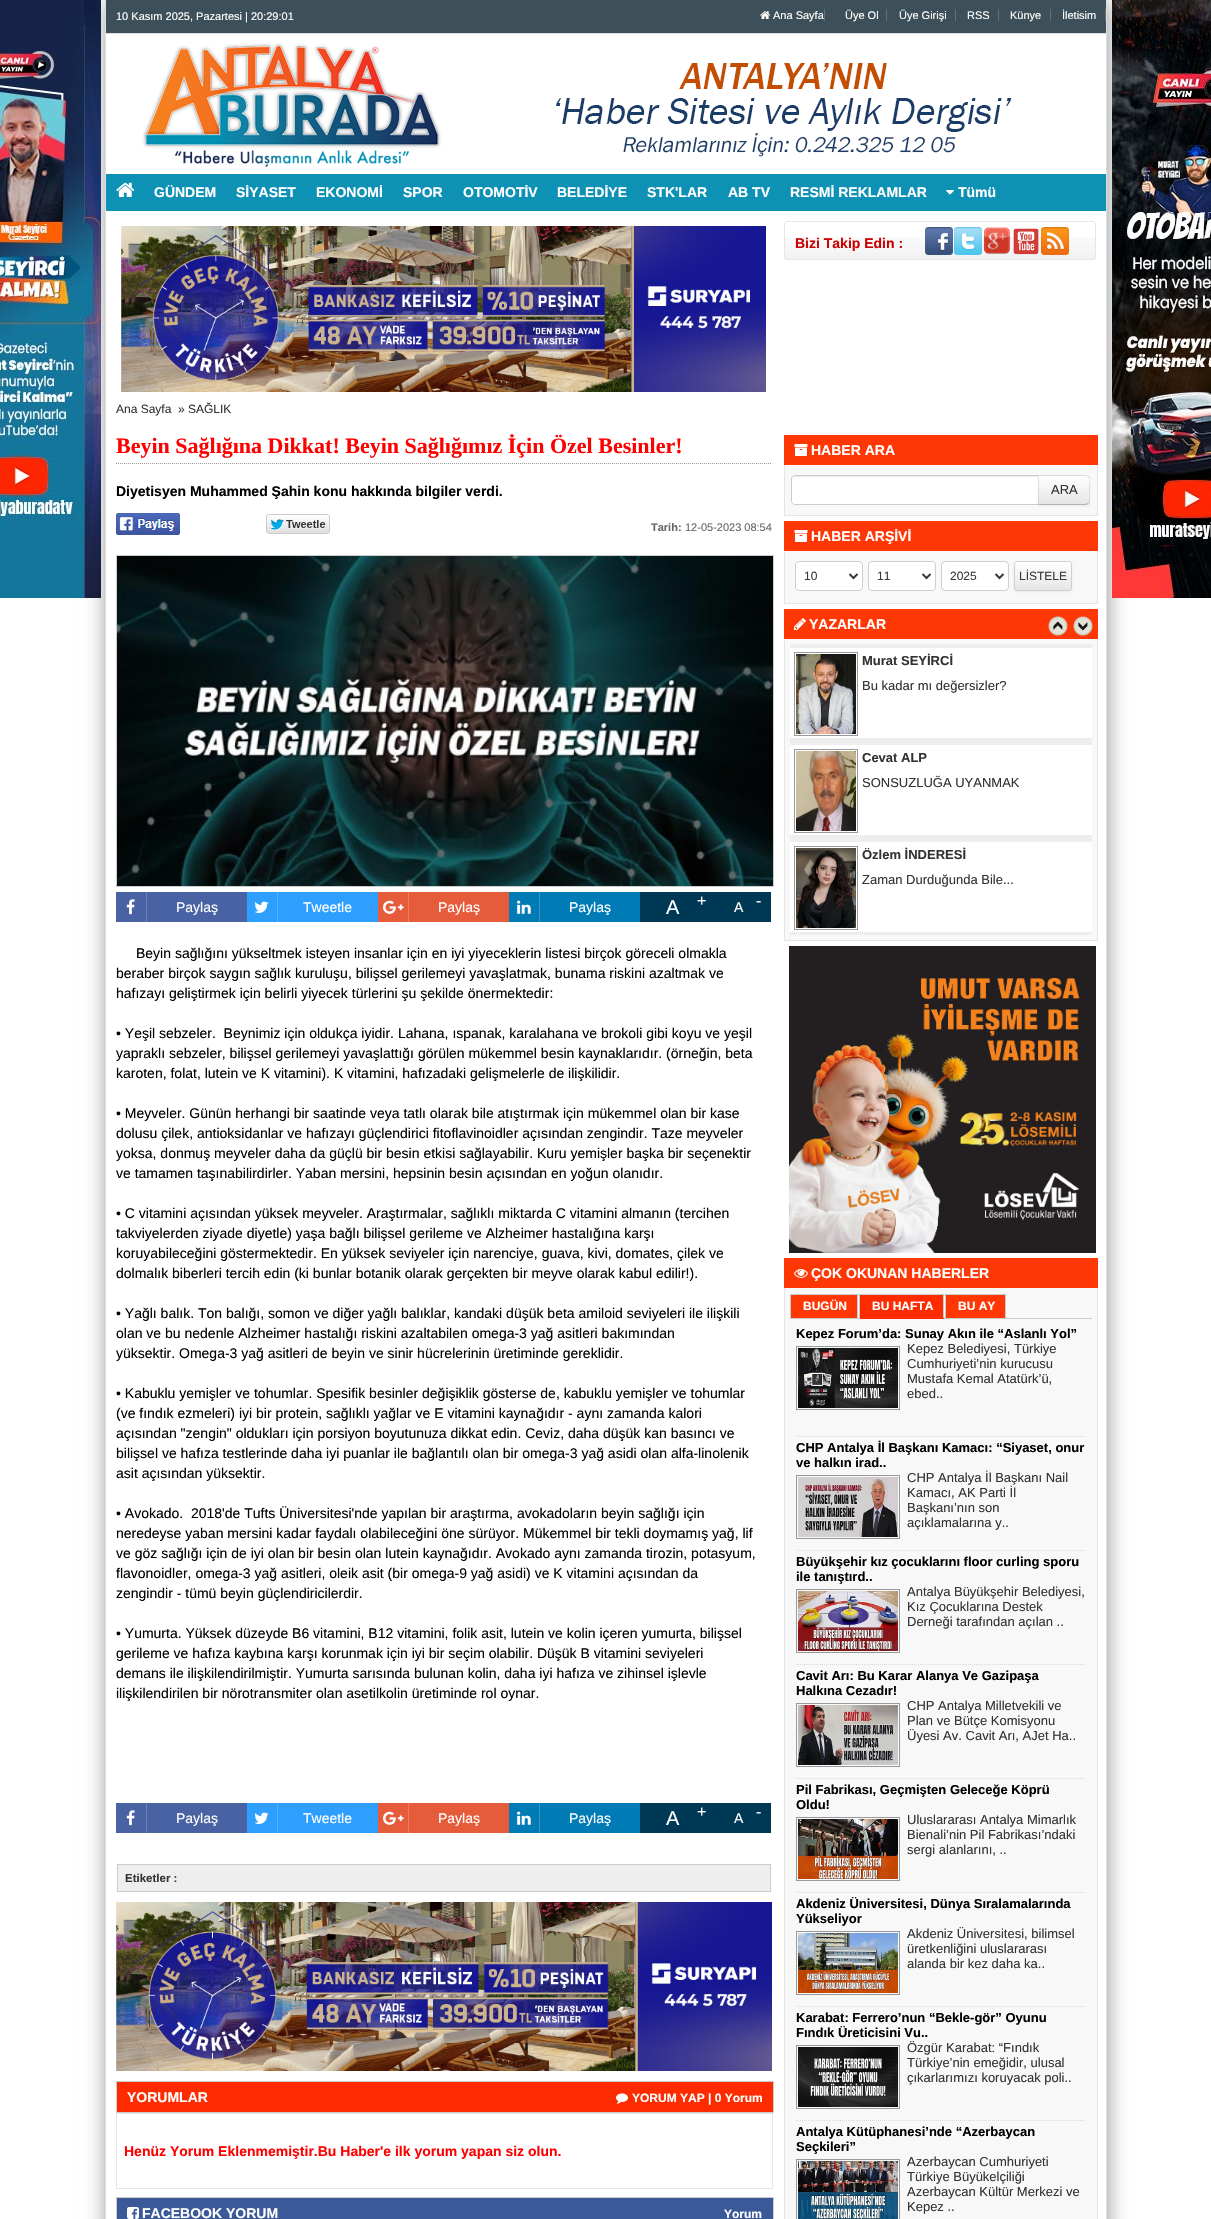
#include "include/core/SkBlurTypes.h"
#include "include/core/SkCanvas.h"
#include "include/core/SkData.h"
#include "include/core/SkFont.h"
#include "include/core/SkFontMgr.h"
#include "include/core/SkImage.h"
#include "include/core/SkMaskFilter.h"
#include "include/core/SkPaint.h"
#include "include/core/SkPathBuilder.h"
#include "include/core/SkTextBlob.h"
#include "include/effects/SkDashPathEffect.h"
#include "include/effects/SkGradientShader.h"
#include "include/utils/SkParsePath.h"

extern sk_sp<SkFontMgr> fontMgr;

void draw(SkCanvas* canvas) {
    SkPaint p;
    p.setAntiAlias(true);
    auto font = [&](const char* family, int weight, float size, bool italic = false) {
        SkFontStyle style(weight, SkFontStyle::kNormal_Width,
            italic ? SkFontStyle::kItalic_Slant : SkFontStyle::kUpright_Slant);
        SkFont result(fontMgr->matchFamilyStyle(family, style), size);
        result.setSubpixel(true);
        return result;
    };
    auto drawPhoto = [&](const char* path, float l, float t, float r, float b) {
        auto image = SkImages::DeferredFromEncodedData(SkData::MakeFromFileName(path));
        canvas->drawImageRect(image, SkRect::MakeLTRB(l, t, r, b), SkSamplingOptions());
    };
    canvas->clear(0xFFFFFFFF);
    canvas->save();
    canvas->clipPath(SkPathBuilder(SkPathFillType::kEvenOdd).moveTo(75, 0).lineTo(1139, 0).lineTo(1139, 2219).lineTo(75, 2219).close().moveTo(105, 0).lineTo(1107, 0).lineTo(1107, 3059).lineTo(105, 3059).close().detach(), true);
    p.setColor(0xFF999999);
    p.setMaskFilter(SkMaskFilter::MakeBlur(kNormal_SkBlurStyle, 10));
    canvas->drawRect(SkRect::MakeLTRB(106, 2, 1108, 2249), p);
    p.setMaskFilter(nullptr);
    canvas->restore();
    p.setColor(0xFFDDDDDD);
    canvas->drawRect(SkRect::MakeLTRB(1106, 0, 1107, 2219), p);
    canvas->drawRect(SkRect::MakeLTRB(105, 0, 106, 2219), p);
    drawPhoto("media/1.png", 0, 0, 101, 598);
    p.setColor(0xFF3D5059);
    canvas->drawRect(SkRect::MakeLTRB(106, 0, 1106, 33), p);
    p.setColor(0xFFDEDEDE);
    canvas->drawRect(SkRect::MakeLTRB(106, 33, 1106, 34), p);
    auto font1 = font("Liberation Sans", 400, 11);
    p.setColor(0xFFFFFFFF);
    canvas->drawString("10 Kasım 2025, Pazartesi | 20:29:01", 116, 20, font1, p);
    p.setColor(0xFF6E6E6E);
    canvas->drawRect(SkRect::MakeLTRB(824, 9, 825, 21), p);
    drawPhoto("media/2.png", 760, 11, 770, 19);
    p.setColor(0xFFFFFFFF);
    canvas->drawString("Ana Sayfa", 773, 19, font1, p);
    canvas->drawString("Üye Ol", 845, 19, font1, p);
    p.setColor(0xFF6E6E6E);
    canvas->drawRect(SkRect::MakeLTRB(886, 9, 887, 21), p);
    p.setColor(0xFFFFFFFF);
    canvas->drawString("Üye Girişi", 899, 19, font1, p);
    p.setColor(0xFF6E6E6E);
    canvas->drawRect(SkRect::MakeLTRB(955, 9, 956, 21), p);
    p.setColor(0xFFFFFFFF);
    canvas->drawString("RSS", 967, 19, font1, p);
    p.setColor(0xFF6E6E6E);
    canvas->drawRect(SkRect::MakeLTRB(998, 9, 999, 21), p);
    p.setColor(0xFFFFFFFF);
    canvas->drawString("Künye", 1010, 19, font1, p);
    p.setColor(0xFF6E6E6E);
    canvas->drawRect(SkRect::MakeLTRB(1050, 9, 1051, 21), p);
    p.setColor(0xFFFFFFFF);
    canvas->drawString("İletisim", 1062, 19, font1, p);
    p.setColor(0xFF6E6E6E);
    canvas->drawRect(SkRect::MakeLTRB(1105, 9, 1106, 21), p);
    drawPhoto("media/3.png", 1112, 0, 1211, 598);
    drawPhoto("media/4.png", 142, 43, 1012, 167);
    p.setColor(0xFF0D91B5);
    canvas->drawRect(SkRect::MakeLTRB(106, 174, 1106, 211), p);
    drawPhoto("media/5.png", 116, 182, 135, 197);
    auto font2 = font("Liberation Sans", 700, 14);
    p.setColor(0xFFFFFFFF);
    {
        const struct { const char* s; float x, y; } items[] = {
            {"GÜNDEM", 154, 197},
            {"SİYASET", 236, 197},
            {"EKONOMİ", 316, 197},
            {"SPOR", 403, 197},
            {"OTOMOTİV", 463, 197},
            {"BELEDİYE", 557, 197},
            {"STK'LAR", 647, 197},
            {"AB TV", 728, 197},
            {"RESMİ REKLAMLAR", 790, 197},
        };
        for (auto [s, x, y] : items) {
            canvas->drawString(s, x, y, font2, p);
        }
    }
    drawPhoto("media/6.png", 946, 190, 954, 195);
    canvas->drawString("Tümü", 958, 197, font2, p);
    drawPhoto("media/7.png", 121, 226, 766, 392);
    auto font3 = font("Liberation Sans", 400, 12);
    p.setColor(0xFF333333);
    canvas->drawString("Ana Sayfa", 116, 413, font3, p);
    canvas->drawString("» SAĞLIK", 178, 413, font3, p);
    p.setStyle(SkPaint::kStroke_Style);
    p.setStrokeWidth(1);
    p.setColor(0xFF999999);
    p.setPathEffect(SkDashPathEffect::Make({{1, 1}}, 0));
    canvas->drawPath(SkPathBuilder().moveTo(116, 463.5f).lineTo(772, 463.5f).detach(), p);
    p.setPathEffect(nullptr);
    auto font4 = font("Liberation Serif", 700, 22);
    p.setStyle(SkPaint::kFill_Style);
    p.setColor(0xFFFF0000);
    canvas->drawString("Beyin Sağlığına Dikkat! Beyin Sağlığımız İçin Özel Besinler!", 116, 453, font4, p);
    p.setColor(0xFF000000);
    canvas->drawString("Diyetisyen Muhammed Şahin konu hakkında bilgiler verdi.", 116, 496, font2, p);
    drawPhoto("media/8.png", 116, 513, 180, 535);
    drawPhoto("media/9.png", 266, 514, 330, 534);
    auto font5 = font("Liberation Sans", 700, 11);
    p.setColor(0xFF666666);
    canvas->drawString("Tarih:", 651, 531, font5, p);
    canvas->drawString("12-05-2023 08:54", 685, 531, font1, p);
    p.setStyle(SkPaint::kStroke_Style);
    p.setColor(0xFFCCCCCC);
    canvas->drawRect(SkRect::MakeLTRB(116.5f, 555.5f, 773.5f, 886.5f), p);
    drawPhoto("media/10.png", 117, 556, 773, 886);
    p.setStyle(SkPaint::kFill_Style);
    p.setColor(0xFF4862A3);
    canvas->drawRect(SkRect::MakeLTRB(116, 892, 247, 922), p);
    p.setColor(0xFF6D81B5);
    canvas->drawRect(SkRect::MakeLTRB(146, 892, 147, 922), p);
    drawPhoto("media/11.png", 126, 899, 135, 915);
    auto font6 = font("Liberation Sans", 400, 14);
    p.setColor(0xFFFFFFFF);
    canvas->drawString("Paylaş", 176, 912, font6, p);
    p.setColor(0xFF2E9FFF);
    canvas->drawRect(SkRect::MakeLTRB(247, 892, 378, 922), p);
    p.setColor(0xFF58B2FF);
    canvas->drawRect(SkRect::MakeLTRB(277, 892, 278, 922), p);
    drawPhoto("media/12.png", 254, 901, 269, 913);
    p.setColor(0xFFFFFFFF);
    canvas->drawString("Tweetle", 303, 912, font6, p);
    p.setColor(0xFFE65C3B);
    canvas->drawRect(SkRect::MakeLTRB(378, 892, 509, 922), p);
    p.setColor(0xFFEB7D62);
    canvas->drawRect(SkRect::MakeLTRB(408, 892, 409, 922), p);
    drawPhoto("media/13.png", 383, 900, 404, 914);
    p.setColor(0xFFFFFFFF);
    canvas->drawString("Paylaş", 438, 912, font6, p);
    p.setColor(0xFF007BB6);
    canvas->drawRect(SkRect::MakeLTRB(509, 892, 640, 922), p);
    p.setColor(0xFF3395C5);
    canvas->drawRect(SkRect::MakeLTRB(539, 892, 540, 922), p);
    drawPhoto("media/14.png", 517, 900, 531, 914);
    p.setColor(0xFFFFFFFF);
    canvas->drawString("Paylaş", 569, 912, font6, p);
    p.setColor(0xFF003955);
    canvas->drawRect(SkRect::MakeLTRB(640, 892, 771, 922), p);
    auto font7 = font("Liberation Sans", 400, 20);
    p.setColor(0xFFFFFFFF);
    canvas->drawString("A", 666, 914, font7, p);
    auto font8 = font("Liberation Sans", 400, 16);
    canvas->drawString("+", 697, 906, font8, p);
    canvas->drawString("A", 734, 912, font6, p);
    canvas->drawString("-", 756, 906, font8, p);
    p.setColor(0xFF000000);
    {
        const struct { const char* s; float x, y; } items[] = {
            {"Beyin sağlığını yükseltmek isteyen insanlar için en iyi yiyeceklerin listesi birçok göreceli olmakla", 136, 958},
            {"beraber birçok saygın sağlık kuruluşu, bilişsel gerilemeyi yavaşlatmak, bunama riskini azaltmak ve", 116, 978},
            {"hafızayı geliştirmek için belirli yiyecek türlerini şu şekilde önermektedir:", 116, 998},
            {"• Yeşil sebzeler.  Beynimiz için oldukça iyidir. Lahana, ıspanak, karalahana ve brokoli gibi koyu ve yeşil", 116, 1038},
            {"yapraklı sebzeler, bilişsel gerilemeyi yavaşlattığı görülen mükemmel besin kaynaklarıdır. (örneğin, beta", 116, 1058},
            {"karoten, folat, lutein ve K vitamini). K vitamini, hafızadaki gelişmelerle de ilişkilidir.", 116, 1078},
            {"• Meyveler. Günün herhangi bir saatinde veya tatlı olarak bile atıştırmak için mükemmel olan bir kase", 116, 1118},
            {"dolusu çilek, antioksidanlar ve hafızayı güçlendirici fitoflavinoidler açısından zengindir. Taze meyveler", 116, 1138},
            {"yoksa, donmuş meyveler daha da güçlü bir besin etkisi sağlayabilir. Kuru yemişler başka bir seçenektir", 116, 1158},
            {"ve tamamen taşınabilirdirler. Yaban mersini, hepsinin besin açısından en yoğun olanıdır.", 116, 1178},
            {"• C vitamini açısından yüksek meyveler. Araştırmalar, sağlıklı miktarda C vitamini almanın (tercihen", 116, 1218},
            {"takviyelerden ziyade diyetle) yaşa bağlı bilişsel gerileme ve Alzheimer hastalığına karşı", 116, 1238},
            {"koruyabileceğini göstermektedir. En yüksek seviyeler için narenciye, guava, kivi, domates, çilek ve", 116, 1258},
            {"dolmalık biberleri tercih edin (ki bunlar botanik olarak gerçekten bir meyve olarak kabul edilir!).", 116, 1278},
            {"• Yağlı balık. Ton balığı, somon ve diğer yağlı balıklar, kandaki düşük beta amiloid seviyeleri ile ilişkili", 116, 1318},
            {"olan ve bu nedenle Alzheimer hastalığı riskini azaltabilen omega-3 yağ asitleri bakımından", 116, 1338},
            {"yüksektir. Omega-3 yağ asitleri de beyin ve sinir hücrelerinin üretiminde gereklidir.", 116, 1358},
            {"• Kabuklu yemişler ve tohumlar. Spesifik besinler değişiklik gösterse de, kabuklu yemişler ve tohumlar", 116, 1398},
            {"(ve fındık ezmeleri) iyi bir protein, sağlıklı yağlar ve E vitamini kaynağıdır - aynı zamanda kalori", 116, 1418},
            {"açısından \"zengin\" oldukları için porsiyon boyutunuza dikkat edin. Ceviz, daha düşük kan basıncı ve", 116, 1438},
            {"bilişsel ve hafıza testlerinde daha iyi puanlar ile bağlantılı olan bir omega-3 yağ asidi olan alfa-linolenik", 116, 1458},
            {"asit açısından yüksektir.", 116, 1478},
            {"• Avokado.  2018'de Tufts Üniversitesi'nde yapılan bir araştırma, avokadoların beyin sağlığı için", 116, 1518},
            {"neredeyse yaban mersini kadar faydalı olabileceğini öne sürüyor. Mükemmel bir tekli doymamış yağ, lif", 116, 1538},
            {"ve göz sağlığı için de iyi olan bir besin olan lutein kaynağıdır. Avokado aynı zamanda tirozin, potasyum,", 116, 1558},
            {"flavonoidler, omega-3 yağ asitleri, oleik asit (bir omega-9 yağ asidi) ve K vitamini açısından da", 116, 1578},
            {"zengindir - tümü beyin güçlendiricilerdir.", 116, 1598},
            {"• Yumurta. Yüksek düzeyde B6 vitamini, B12 vitamini, folik asit, lutein ve kolin içeren yumurta, bilişsel", 116, 1638},
            {"gerileme ve hafıza kaybına karşı korunmak için iyi bir seçim olabilir. Düşük B vitamini seviyeleri", 116, 1658},
            {"demans ile ilişkilendirilmiştir. Yumurta sarısında bulunan kolin, daha iyi hafıza ve zihinsel işlevle", 116, 1678},
            {"ilişkilendirilen bir nörotransmiter olan asetilkolin üretiminde rol oynar.", 116, 1698},
        };
        for (auto [s, x, y] : items) {
            canvas->drawString(s, x, y, font6, p);
        }
    }
    p.setColor(0xFF4862A3);
    canvas->drawRect(SkRect::MakeLTRB(116, 1803, 247, 1833), p);
    p.setColor(0xFF6D81B5);
    canvas->drawRect(SkRect::MakeLTRB(146, 1803, 147, 1833), p);
    drawPhoto("media/11.png", 126, 1810, 135, 1826);
    p.setColor(0xFFFFFFFF);
    canvas->drawString("Paylaş", 176, 1823, font6, p);
    p.setColor(0xFF2E9FFF);
    canvas->drawRect(SkRect::MakeLTRB(247, 1803, 378, 1833), p);
    p.setColor(0xFF58B2FF);
    canvas->drawRect(SkRect::MakeLTRB(277, 1803, 278, 1833), p);
    drawPhoto("media/12.png", 254, 1812, 269, 1824);
    p.setColor(0xFFFFFFFF);
    canvas->drawString("Tweetle", 303, 1823, font6, p);
    p.setColor(0xFFE65C3B);
    canvas->drawRect(SkRect::MakeLTRB(378, 1803, 509, 1833), p);
    p.setColor(0xFFEB7D62);
    canvas->drawRect(SkRect::MakeLTRB(408, 1803, 409, 1833), p);
    drawPhoto("media/13.png", 383, 1811, 404, 1825);
    p.setColor(0xFFFFFFFF);
    canvas->drawString("Paylaş", 438, 1823, font6, p);
    p.setColor(0xFF007BB6);
    canvas->drawRect(SkRect::MakeLTRB(509, 1803, 640, 1833), p);
    p.setColor(0xFF3395C5);
    canvas->drawRect(SkRect::MakeLTRB(539, 1803, 540, 1833), p);
    drawPhoto("media/14.png", 517, 1811, 531, 1825);
    p.setColor(0xFFFFFFFF);
    canvas->drawString("Paylaş", 569, 1823, font6, p);
    p.setColor(0xFF003955);
    canvas->drawRect(SkRect::MakeLTRB(640, 1803, 771, 1833), p);
    p.setColor(0xFFFFFFFF);
    canvas->drawString("A", 666, 1825, font7, p);
    canvas->drawString("+", 697, 1817, font8, p);
    canvas->drawString("A", 734, 1823, font6, p);
    canvas->drawString("-", 756, 1817, font8, p);
    p.setColor(0xFFEEEEEE);
    canvas->drawRect(SkRect::MakeLTRB(117.5f, 1864.5f, 770.5f, 1891.5f), p);
    p.setStyle(SkPaint::kStroke_Style);
    p.setColor(0xFFCCCCCC);
    canvas->drawRect(SkRect::MakeLTRB(117.5f, 1864.5f, 770.5f, 1891.5f), p);
    auto font9 = font("Liberation Sans", 700, 11.5f);
    p.setStyle(SkPaint::kFill_Style);
    p.setColor(0xFF333333);
    canvas->drawString("Etiketler :", 125, 1882, font9, p);
    drawPhoto("media/15.png", 116, 1902, 772, 2071);
    p.setColor(0xFFFF2B00);
    canvas->drawRect(SkRect::MakeLTRB(116.5f, 2081.5f, 773.5f, 2112.5f), p);
    p.setStyle(SkPaint::kStroke_Style);
    p.setColor(0xFFCCCCCC);
    canvas->drawRect(SkRect::MakeLTRB(116.5f, 2081.5f, 773.5f, 2112.5f), p);
    p.setStyle(SkPaint::kFill_Style);
    p.setColor(0xFFFFFFFF);
    canvas->drawString("YORUMLAR", 127, 2102, font2, p);
    drawPhoto("media/16.png", 616, 2093, 628, 2104);
    auto font10 = font("Liberation Sans", 700, 12);
    canvas->drawString("YORUM YAP | 0 Yorum", 632, 2102, font10, p);
    p.setStyle(SkPaint::kStroke_Style);
    p.setColor(0xFFE5E5E5);
    canvas->drawRect(SkRect::MakeLTRB(116.5f, 2113.5f, 772.5f, 2188.5f), p);
    p.setStyle(SkPaint::kFill_Style);
    p.setColor(0xFFFF0000);
    canvas->drawString("Henüz Yorum Eklenmemiştir.Bu Haber'e ilk yorum yapan siz olun.", 124, 2156, font2, p);
    p.setColor(0xFF3B5998);
    canvas->drawRect(SkRect::MakeLTRB(116.5f, 2197.5f, 773.5f, 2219.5f), p);
    p.setStyle(SkPaint::kStroke_Style);
    p.setColor(0xFFCCCCCC);
    canvas->drawRect(SkRect::MakeLTRB(116.5f, 2197.5f, 773.5f, 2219.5f), p);
    drawPhoto("media/17.png", 127, 2207, 139, 2219);
    p.setStyle(SkPaint::kFill_Style);
    p.setColor(0xFFFFFFFF);
    canvas->drawString("FACEBOOK YORUM", 142, 2218, font2, p);
    canvas->drawString("Yorum", 724, 2218, font10, p);
    drawPhoto("media/18.png", 784, 237, 1096, 259);
    p.setStyle(SkPaint::kStroke_Style);
    p.setColor(0xFFE6E6E6);
    canvas->drawRoundRect(SkRect::MakeLTRB(784.5f, 221.5f, 1095.5f, 259.5f), 2.5f, 2.5f, p);
    p.setStyle(SkPaint::kFill_Style);
    p.setColor(0xFFCC0000);
    canvas->drawString("Bizi Takip Edin :", 795, 248, font2, p);
    drawPhoto("media/19.png", 925, 227, 953, 255);
    drawPhoto("media/20.png", 954, 227, 982, 255);
    drawPhoto("media/21.png", 983, 227, 1011, 255);
    drawPhoto("media/22.png", 1013, 228, 1039, 255);
    drawPhoto("media/23.png", 1041, 227, 1069, 255);
    p.setColor(0xFFFF3705);
    canvas->drawRect(SkRect::MakeLTRB(784, 435, 1098, 465), p);
    drawPhoto("media/24.png", 794, 444, 808, 456);
    p.setColor(0xFFFFFFFF);
    canvas->drawString("HABER ARA", 811, 455, font2, p);
    {
        const struct { float l, t, r, b; SkColor color; } items[] = {
            {785, 465, 1097, 515, 0xFFF8F8F8},
            {1097, 465, 1098, 516, 0xFFE5E5E5},
            {784, 515, 1098, 516, 0xFFE5E5E5},
            {784, 465, 785, 516, 0xFFE5E5E5},
        };
        for (auto [l, t, r, b, color] : items) {
            p.setColor(color);
            canvas->drawRect(SkRect::MakeLTRB(l, t, r, b), p);
        }
    }
    p.setColor(0xFFFFFFFF);
    canvas->drawPath(SkPathBuilder().moveTo(795, 475).lineTo(1039, 475).lineTo(1039, 505).lineTo(795, 505).cubicTo(793, 505, 791, 503, 791, 501).lineTo(791, 479).cubicTo(791, 477, 793, 475, 795, 475).close().detach(), p);
    p.setColor(0xFFECECEC);
    canvas->drawPath(SkPathBuilder().moveTo(795, 477).lineTo(1038, 477).lineTo(1038, 476).lineTo(795, 476).cubicTo(793, 476, 792, 478, 792, 480).cubicTo(792, 478, 793, 477, 795, 477).close().detach(), p);
    p.setStyle(SkPaint::kStroke_Style);
    p.setColor(0xFFCCCCCC);
    canvas->drawPath(SkPathBuilder().moveTo(795, 475.5f).lineTo(1038.5f, 475.5f).lineTo(1038.5f, 504.5f).lineTo(795, 504.5f).cubicTo(793, 504.5f, 791.5f, 503, 791.5f, 501).lineTo(791.5f, 479).cubicTo(791.5f, 477, 793, 475.5f, 795, 475.5f).close().detach(), p);
    p.setStyle(SkPaint::kFill_Style);
    p.setColor(0x0D000000);
    p.setMaskFilter(SkMaskFilter::MakeBlur(kNormal_SkBlurStyle, 1));
    canvas->drawRoundRect(SkRect::MakeLTRB(1038, 476, 1090, 506), 4, 4, p);
    p.setMaskFilter(nullptr);
    p.setColor(0xFFF5F5F5);
    canvas->drawPath(SkPathBuilder().moveTo(1038, 475).lineTo(1086, 475).cubicTo(1088, 475, 1090, 477, 1090, 479).lineTo(1090, 501).cubicTo(1090, 503, 1088, 505, 1086, 505).lineTo(1038, 505).close().detach(), p);
    canvas->save();
    canvas->clipPath(SkPathBuilder().moveTo(1038, 475).lineTo(1086, 475).cubicTo(1088, 475, 1090, 477, 1090, 479).lineTo(1090, 501).cubicTo(1090, 503, 1088, 505, 1086, 505).lineTo(1038, 505).close().detach(), true);
    {
        const SkColor colors[] = {0xFFFFFFFF, 0xFFE6E6E6};
        const float stops[] = {0, 1};
        const SkPoint ends[] = {{1064, 476}, {1064, 504}};
        p.setShader(SkGradientShader::MakeLinear(ends, colors, stops, 2, SkTileMode::kClamp));
        p.setAlpha(255);
    }
    canvas->drawRect(SkRect::MakeLTRB(1038, 476, 1090, 504), p);
    canvas->restore();
    p.setShader(nullptr);
    p.setColor(0x1A000000);
    canvas->drawPath(SkPathBuilder().moveTo(1038, 475).lineTo(1039, 476).lineTo(1078, 476).cubicTo(1084, 476, 1087, 476, 1088, 477).lineTo(1089, 476).cubicTo(1087, 475, 1084, 475, 1078, 475).close().detach(), p);
    canvas->drawPath(SkPathBuilder().moveTo(1090, 502).lineTo(1089, 504).lineTo(1088, 503).cubicTo(1090.5f, 501.5f, 1089, 492.5f, 1089, 490).cubicTo(1089, 487.5f, 1090.5f, 478.5f, 1088, 477).lineTo(1089, 476).cubicTo(1090.5f, 477.5f, 1090, 480, 1090, 482).close().detach(), p);
    p.setColor(0xFFB3B3B3);
    canvas->drawPath(SkPathBuilder().moveTo(1078, 505).cubicTo(1084, 505, 1087, 505, 1089, 504).lineTo(1088, 503).cubicTo(1087, 504, 1084, 504, 1078, 504).lineTo(1039, 504).lineTo(1038, 505).close().detach(), p);
    p.setColor(0x1A000000);
    canvas->drawPath(SkPathBuilder().moveTo(1038, 475).lineTo(1038, 505).lineTo(1039, 504).lineTo(1039, 476).close().detach(), p);
    auto font11 = font("Liberation Sans", 400, 13);
    p.setColor(0xFF333333);
    canvas->drawString("ARA", 1051, 494, font11, p);
    p.setColor(0xFFFF3705);
    canvas->drawRect(SkRect::MakeLTRB(784, 521, 1098, 551), p);
    drawPhoto("media/24.png", 794, 530, 808, 542);
    p.setColor(0xFFFFFFFF);
    canvas->drawString("HABER ARŞİVİ", 811, 541, font2, p);
    {
        const struct { float l, t, r, b; SkColor color; } items[] = {
            {785, 551, 1097, 603, 0xFFF8F8F8},
            {1097, 551, 1098, 604, 0xFFE5E5E5},
            {784, 603, 1098, 604, 0xFFE5E5E5},
            {784, 551, 785, 604, 0xFFE5E5E5},
        };
        for (auto [l, t, r, b, color] : items) {
            p.setColor(color);
            canvas->drawRect(SkRect::MakeLTRB(l, t, r, b), p);
        }
    }
    p.setColor(0xFFFFFFFF);
    canvas->drawRoundRect(SkRect::MakeLTRB(795.5f, 561.5f, 862.5f, 590.5f), 3.5f, 3.5f, p);
    p.setStyle(SkPaint::kStroke_Style);
    p.setColor(0xFFCFCFCF);
    canvas->drawRoundRect(SkRect::MakeLTRB(795.5f, 561.5f, 862.5f, 590.5f), 3.5f, 3.5f, p);
    p.setStrokeWidth(2);
    p.setColor(0xFF393939);
    canvas->drawPath(SkPathBuilder().moveTo(849.5f, 574).lineTo(853.5f, 578).lineTo(857.5f, 574).detach(), p);
    p.setStyle(SkPaint::kFill_Style);
    canvas->drawString("10", 804, 580, font3, p);
    p.setColor(0xFFFFFFFF);
    canvas->drawRoundRect(SkRect::MakeLTRB(868.5f, 561.5f, 935.5f, 590.5f), 3.5f, 3.5f, p);
    p.setStyle(SkPaint::kStroke_Style);
    p.setStrokeWidth(1);
    p.setColor(0xFFCFCFCF);
    canvas->drawRoundRect(SkRect::MakeLTRB(868.5f, 561.5f, 935.5f, 590.5f), 3.5f, 3.5f, p);
    p.setStrokeWidth(2);
    p.setColor(0xFF393939);
    canvas->drawPath(SkPathBuilder().moveTo(922.5f, 574).lineTo(926.5f, 578).lineTo(930.5f, 574).detach(), p);
    p.setStyle(SkPaint::kFill_Style);
    canvas->drawString("11", 877, 580, font3, p);
    p.setColor(0xFFFFFFFF);
    canvas->drawRoundRect(SkRect::MakeLTRB(941.5f, 561.5f, 1008.5f, 590.5f), 3.5f, 3.5f, p);
    p.setStyle(SkPaint::kStroke_Style);
    p.setStrokeWidth(1);
    p.setColor(0xFFCFCFCF);
    canvas->drawRoundRect(SkRect::MakeLTRB(941.5f, 561.5f, 1008.5f, 590.5f), 3.5f, 3.5f, p);
    p.setStrokeWidth(2);
    p.setColor(0xFF393939);
    canvas->drawPath(SkPathBuilder().moveTo(995.5f, 574).lineTo(999.5f, 578).lineTo(1003.5f, 574).detach(), p);
    p.setStyle(SkPaint::kFill_Style);
    canvas->drawString("2025", 950, 580, font3, p);
    p.setColor(0x0D000000);
    p.setMaskFilter(SkMaskFilter::MakeBlur(kNormal_SkBlurStyle, 1));
    canvas->drawRoundRect(SkRect::MakeLTRB(1014, 562, 1072, 592), 3, 3, p);
    p.setMaskFilter(nullptr);
    canvas->save();
    canvas->clipPath(SkPathBuilder().moveTo(1017, 561).lineTo(1069, 561).cubicTo(1070.5f, 561, 1072, 562.5f, 1072, 564).lineTo(1072, 588).cubicTo(1072, 589.5f, 1070.5f, 591, 1069, 591).lineTo(1017, 591).cubicTo(1015.5f, 591, 1014, 589.5f, 1014, 588).lineTo(1014, 564).cubicTo(1014, 562.5f, 1015.5f, 561, 1017, 561).close().detach(), true);
    {
        const SkColor colors[] = {0xFFFFFFFF, 0xFFE6E6E6};
        const float stops[] = {0, 1};
        const SkPoint ends[] = {{1043, 562}, {1043, 590}};
        p.setShader(SkGradientShader::MakeLinear(ends, colors, stops, 2, SkTileMode::kClamp));
        p.setAlpha(255);
    }
    canvas->drawRect(SkRect::MakeLTRB(1014, 562, 1072, 590), p);
    canvas->restore();
    p.setShader(nullptr);
    p.setColor(0xFFFFFFFF);
    canvas->drawPath(SkPathBuilder().moveTo(1017, 563).lineTo(1069, 563).cubicTo(1070, 563, 1071, 564, 1071, 565).cubicTo(1071, 560, 1064, 562, 1060, 562).lineTo(1026, 562).cubicTo(1022, 562, 1015, 560, 1015, 565).cubicTo(1015, 564, 1016, 563, 1017, 563).close().detach(), p);
    p.setStyle(SkPaint::kStroke_Style);
    p.setStrokeWidth(1);
    p.setColor(0xFFCFCFCF);
    canvas->drawRoundRect(SkRect::MakeLTRB(1014.5f, 561.5f, 1071.5f, 590.5f), 2.5f, 2.5f, p);
    p.setStyle(SkPaint::kFill_Style);
    p.setColor(0xFF393939);
    canvas->drawString("LİSTELE", 1019, 580, font3, p);
    p.setColor(0xFFFF3705);
    canvas->drawRect(SkRect::MakeLTRB(784, 609, 1098, 639), p);
    drawPhoto("media/25.png", 794, 618, 806, 630);
    p.setColor(0xFFFFFFFF);
    canvas->drawString("YAZARLAR", 809, 629, font2, p);
    drawPhoto("media/26.png", 1048, 616, 1068, 636);
    drawPhoto("media/27.png", 1073, 616, 1093, 636);
    {
        const struct { float l, t, r, b; SkColor color; } items[] = {
            {785, 639, 1097, 940, 0xFFF8F8F8},
            {1097, 639, 1098, 941, 0xFFE5E5E5},
            {784, 940, 1098, 941, 0xFFE5E5E5},
            {784, 639, 785, 941, 0xFFE5E5E5},
            {790, 644, 1092, 935, 0xFFEEEEEE},
            {790, 648, 1092, 739, 0xFFFFFFFF},
        };
        for (auto [l, t, r, b, color] : items) {
            p.setColor(color);
            canvas->drawRect(SkRect::MakeLTRB(l, t, r, b), p);
        }
    }
    canvas->save();
    canvas->clipRect(SkRect::MakeLTRB(790, 644, 1092, 741));
    p.setStyle(SkPaint::kStroke_Style);
    p.setColor(0xFFDADADA);
    p.setPathEffect(SkDashPathEffect::Make({{1, 1}}, 0));
    canvas->drawPath(SkPathBuilder().moveTo(790, 738.5f).lineTo(1100, 738.5f).detach(), p);
    p.setPathEffect(nullptr);
    canvas->restore();
    p.setColor(0xFF999999);
    canvas->drawRect(SkRect::MakeLTRB(794.5f, 652.5f, 857.5f, 735.5f), p);
    drawPhoto("media/28.png", 796, 654, 856, 734);
    auto font12 = font("Liberation Sans", 700, 13);
    p.setStyle(SkPaint::kFill_Style);
    p.setColor(0xFF333333);
    canvas->drawString("Murat SEYİRCİ", 862, 665, font12, p);
    canvas->drawString("Bu kadar mı değersizler?", 862, 690, font11, p);
    p.setColor(0xFFFFFFFF);
    canvas->drawRect(SkRect::MakeLTRB(790, 745, 1092, 836), p);
    canvas->save();
    canvas->clipRect(SkRect::MakeLTRB(790, 741, 1092, 838));
    p.setStyle(SkPaint::kStroke_Style);
    p.setColor(0xFFDADADA);
    p.setPathEffect(SkDashPathEffect::Make({{1, 1}}, 0));
    canvas->drawPath(SkPathBuilder().moveTo(790, 835.5f).lineTo(1100, 835.5f).detach(), p);
    p.setPathEffect(nullptr);
    canvas->restore();
    p.setColor(0xFF999999);
    canvas->drawRect(SkRect::MakeLTRB(794.5f, 749.5f, 857.5f, 832.5f), p);
    drawPhoto("media/29.png", 796, 751, 856, 831);
    p.setStyle(SkPaint::kFill_Style);
    p.setColor(0xFF333333);
    canvas->drawString("Cevat ALP", 862, 762, font12, p);
    canvas->drawString("SONSUZLUĞA UYANMAK", 862, 787, font11, p);
    p.setColor(0xFFFFFFFF);
    canvas->drawRect(SkRect::MakeLTRB(790, 842, 1092, 933), p);
    canvas->save();
    canvas->clipRect(SkRect::MakeLTRB(790, 838, 1092, 935));
    p.setStyle(SkPaint::kStroke_Style);
    p.setColor(0xFFDADADA);
    p.setPathEffect(SkDashPathEffect::Make({{1, 1}}, 0));
    canvas->drawPath(SkPathBuilder().moveTo(790, 932.5f).lineTo(1100, 932.5f).detach(), p);
    p.setPathEffect(nullptr);
    canvas->restore();
    p.setColor(0xFF999999);
    canvas->drawRect(SkRect::MakeLTRB(794.5f, 846.5f, 857.5f, 929.5f), p);
    drawPhoto("media/30.png", 796, 848, 856, 928);
    p.setStyle(SkPaint::kFill_Style);
    p.setColor(0xFF333333);
    canvas->drawString("Özlem İNDERESİ", 862, 859, font12, p);
    canvas->drawString("Zaman Durduğunda Bile...", 862, 884, font11, p);
    drawPhoto("media/31.png", 789, 946, 1096, 1253);
    p.setColor(0xFFFF3705);
    canvas->drawRect(SkRect::MakeLTRB(784, 1258, 1098, 1288), p);
    drawPhoto("media/32.png", 794, 1269, 808, 1278);
    p.setColor(0xFFFFFFFF);
    canvas->drawString("ÇOK OKUNAN HABERLER", 811, 1278, font2, p);
    {
        const struct { float l, t, r, b; SkColor color; } items[] = {
            {785, 1288, 1097, 2219, 0xFFF8F8F8},
            {1097, 1288, 1098, 2219, 0xFFE5E5E5},
            {784, 1288, 785, 2219, 0xFFE5E5E5},
        };
        for (auto [l, t, r, b, color] : items) {
            p.setColor(color);
            canvas->drawRect(SkRect::MakeLTRB(l, t, r, b), p);
        }
    }
    p.setColor(0xFFFF3705);
    canvas->drawRect(SkRect::MakeLTRB(790.5f, 1294.5f, 857.5f, 1318.5f), p);
    p.setStyle(SkPaint::kStroke_Style);
    p.setColor(0xFFCCCCCC);
    canvas->drawRect(SkRect::MakeLTRB(790.5f, 1294.5f, 857.5f, 1318.5f), p);
    p.setStyle(SkPaint::kFill_Style);
    p.setColor(0xFFFFFFFF);
    canvas->drawString("BUGÜN", 803, 1310, font10, p);
    {
        const struct { float l, t, r, b; SkColor color; } items[] = {
            {860, 1295, 943, 1318, 0xFFFF2B00},
            {859, 1294, 944, 1295, 0xFFCCCCCC},
            {858, 1318, 1092, 1319, 0xFFCCCCCC},
            {943, 1294, 944, 1319, 0xFFCCCCCC},
            {859, 1318, 944, 1319, 0xFFFF2B00},
            {859, 1294, 860, 1319, 0xFFCCCCCC},
        };
        for (auto [l, t, r, b, color] : items) {
            p.setColor(color);
            canvas->drawRect(SkRect::MakeLTRB(l, t, r, b), p);
        }
    }
    p.setColor(0xFFFFFFFF);
    canvas->drawString("BU HAFTA", 872, 1310, font10, p);
    p.setColor(0xFFFF3705);
    canvas->drawRect(SkRect::MakeLTRB(945.5f, 1294.5f, 1005.5f, 1318.5f), p);
    p.setStyle(SkPaint::kStroke_Style);
    p.setColor(0xFFCCCCCC);
    canvas->drawRect(SkRect::MakeLTRB(945.5f, 1294.5f, 1005.5f, 1318.5f), p);
    p.setStyle(SkPaint::kFill_Style);
    p.setColor(0xFFFFFFFF);
    canvas->drawString("BU AY", 958, 1310, font10, p);
    p.setStyle(SkPaint::kStroke_Style);
    p.setColor(0xFFDADADA);
    p.setPathEffect(SkDashPathEffect::Make({{1, 1}}, 0));
    canvas->drawPath(SkPathBuilder().moveTo(796, 1436.5f).lineTo(1086, 1436.5f).detach(), p);
    p.setPathEffect(nullptr);
    p.setStyle(SkPaint::kFill_Style);
    p.setColor(0xFF000000);
    canvas->drawString("Kepez Forum’da: Sunay Akın ile “Aslanlı Yol”", 796, 1338, font12, p);
    p.setStyle(SkPaint::kStroke_Style);
    p.setColor(0xFF999999);
    canvas->drawRect(SkRect::MakeLTRB(796.5f, 1346.5f, 899.5f, 1409.5f), p);
    drawPhoto("media/33.png", 798, 1348, 898, 1408);
    p.setStyle(SkPaint::kFill_Style);
    p.setColor(0xFF333333);
    {
        const struct { const char* s; float x, y; } items[] = {
            {"Kepez Belediyesi, Türkiye", 907, 1353},
            {"Cumhuriyeti’nin kurucusu", 907, 1368},
            {"Mustafa Kemal Atatürk’ü,", 907, 1383},
            {"ebed..", 907, 1398},
        };
        for (auto [s, x, y] : items) {
            canvas->drawString(s, x, y, font11, p);
        }
    }
    p.setStyle(SkPaint::kStroke_Style);
    p.setColor(0xFFDADADA);
    p.setPathEffect(SkDashPathEffect::Make({{1, 1}}, 0));
    canvas->drawPath(SkPathBuilder().moveTo(796, 1550.5f).lineTo(1086, 1550.5f).detach(), p);
    p.setPathEffect(nullptr);
    p.setStyle(SkPaint::kFill_Style);
    p.setColor(0xFF000000);
    canvas->drawString("CHP Antalya İl Başkanı Kamacı: “Siyaset, onur", 796, 1452, font12, p);
    canvas->drawString("ve halkın irad..", 796, 1467, font12, p);
    p.setStyle(SkPaint::kStroke_Style);
    p.setColor(0xFF999999);
    canvas->drawRect(SkRect::MakeLTRB(796.5f, 1475.5f, 899.5f, 1538.5f), p);
    drawPhoto("media/34.png", 798, 1477, 898, 1537);
    p.setStyle(SkPaint::kFill_Style);
    p.setColor(0xFF333333);
    {
        const struct { const char* s; float x, y; } items[] = {
            {"CHP Antalya İl Başkanı Nail", 907, 1482},
            {"Kamacı, AK Parti İl", 907, 1497},
            {"Başkanı’nın son", 907, 1512},
            {"açıklamalarına y..", 907, 1527},
        };
        for (auto [s, x, y] : items) {
            canvas->drawString(s, x, y, font11, p);
        }
    }
    p.setStyle(SkPaint::kStroke_Style);
    p.setColor(0xFFDADADA);
    p.setPathEffect(SkDashPathEffect::Make({{1, 1}}, 0));
    canvas->drawPath(SkPathBuilder().moveTo(796, 1664.5f).lineTo(1086, 1664.5f).detach(), p);
    p.setPathEffect(nullptr);
    p.setStyle(SkPaint::kFill_Style);
    p.setColor(0xFF000000);
    canvas->drawString("Büyükşehir kız çocuklarını floor curling sporu", 796, 1566, font12, p);
    canvas->drawString("ile tanıştırd..", 796, 1581, font12, p);
    p.setStyle(SkPaint::kStroke_Style);
    p.setColor(0xFF999999);
    canvas->drawRect(SkRect::MakeLTRB(796.5f, 1589.5f, 899.5f, 1652.5f), p);
    drawPhoto("media/35.png", 798, 1591, 898, 1651);
    p.setStyle(SkPaint::kFill_Style);
    p.setColor(0xFF333333);
    {
        const struct { const char* s; float x, y; } items[] = {
            {"Antalya Büyükşehir Belediyesi,", 907, 1596},
            {"Kız Çocuklarına Destek", 907, 1611},
            {"Derneği tarafından açılan ..", 907, 1626},
        };
        for (auto [s, x, y] : items) {
            canvas->drawString(s, x, y, font11, p);
        }
    }
    p.setStyle(SkPaint::kStroke_Style);
    p.setColor(0xFFDADADA);
    p.setPathEffect(SkDashPathEffect::Make({{1, 1}}, 0));
    canvas->drawPath(SkPathBuilder().moveTo(796, 1778.5f).lineTo(1086, 1778.5f).detach(), p);
    p.setPathEffect(nullptr);
    p.setStyle(SkPaint::kFill_Style);
    p.setColor(0xFF000000);
    canvas->drawString("Cavit Arı: Bu Karar Alanya Ve Gazipaşa", 796, 1680, font12, p);
    canvas->drawString("Halkına Cezadır!", 796, 1695, font12, p);
    p.setStyle(SkPaint::kStroke_Style);
    p.setColor(0xFF999999);
    canvas->drawRect(SkRect::MakeLTRB(796.5f, 1703.5f, 899.5f, 1766.5f), p);
    drawPhoto("media/36.png", 798, 1705, 898, 1765);
    p.setStyle(SkPaint::kFill_Style);
    p.setColor(0xFF333333);
    {
        const struct { const char* s; float x, y; } items[] = {
            {"CHP Antalya Milletvekili ve", 907, 1710},
            {"Plan ve Bütçe Komisyonu", 907, 1725},
            {"Üyesi Av. Cavit Arı, AJet Ha..", 907, 1740},
        };
        for (auto [s, x, y] : items) {
            canvas->drawString(s, x, y, font11, p);
        }
    }
    p.setStyle(SkPaint::kStroke_Style);
    p.setColor(0xFFDADADA);
    p.setPathEffect(SkDashPathEffect::Make({{1, 1}}, 0));
    canvas->drawPath(SkPathBuilder().moveTo(796, 1892.5f).lineTo(1086, 1892.5f).detach(), p);
    p.setPathEffect(nullptr);
    p.setStyle(SkPaint::kFill_Style);
    p.setColor(0xFF000000);
    canvas->drawString("Pil Fabrikası, Geçmişten Geleceğe Köprü", 796, 1794, font12, p);
    canvas->drawString("Oldu!", 796, 1809, font12, p);
    p.setStyle(SkPaint::kStroke_Style);
    p.setColor(0xFF999999);
    canvas->drawRect(SkRect::MakeLTRB(796.5f, 1817.5f, 899.5f, 1880.5f), p);
    drawPhoto("media/37.png", 798, 1819, 898, 1879);
    p.setStyle(SkPaint::kFill_Style);
    p.setColor(0xFF333333);
    {
        const struct { const char* s; float x, y; } items[] = {
            {"Uluslararası Antalya Mimarlık", 907, 1824},
            {"Bienali’nin Pil Fabrikası’ndaki", 907, 1839},
            {"sergi alanlarını, ..", 907, 1854},
        };
        for (auto [s, x, y] : items) {
            canvas->drawString(s, x, y, font11, p);
        }
    }
    p.setStyle(SkPaint::kStroke_Style);
    p.setColor(0xFFDADADA);
    p.setPathEffect(SkDashPathEffect::Make({{1, 1}}, 0));
    canvas->drawPath(SkPathBuilder().moveTo(796, 2006.5f).lineTo(1086, 2006.5f).detach(), p);
    p.setPathEffect(nullptr);
    p.setStyle(SkPaint::kFill_Style);
    p.setColor(0xFF000000);
    canvas->drawString("Akdeniz Üniversitesi, Dünya Sıralamalarında", 796, 1908, font12, p);
    canvas->drawString("Yükseliyor", 796, 1923, font12, p);
    p.setStyle(SkPaint::kStroke_Style);
    p.setColor(0xFF999999);
    canvas->drawRect(SkRect::MakeLTRB(796.5f, 1931.5f, 899.5f, 1994.5f), p);
    drawPhoto("media/38.png", 798, 1933, 898, 1993);
    p.setStyle(SkPaint::kFill_Style);
    p.setColor(0xFF333333);
    {
        const struct { const char* s; float x, y; } items[] = {
            {"Akdeniz Üniversitesi, bilimsel", 907, 1938},
            {"üretkenliğini uluslararası", 907, 1953},
            {"alanda bir kez daha ka..", 907, 1968},
        };
        for (auto [s, x, y] : items) {
            canvas->drawString(s, x, y, font11, p);
        }
    }
    p.setStyle(SkPaint::kStroke_Style);
    p.setColor(0xFFDADADA);
    p.setPathEffect(SkDashPathEffect::Make({{1, 1}}, 0));
    canvas->drawPath(SkPathBuilder().moveTo(796, 2120.5f).lineTo(1086, 2120.5f).detach(), p);
    p.setPathEffect(nullptr);
    p.setStyle(SkPaint::kFill_Style);
    p.setColor(0xFF000000);
    canvas->drawString("Karabat: Ferrero’nun “Bekle-gör” Oyunu", 796, 2022, font12, p);
    canvas->drawString("Fındık Üreticisini Vu..", 796, 2037, font12, p);
    p.setStyle(SkPaint::kStroke_Style);
    p.setColor(0xFF999999);
    canvas->drawRect(SkRect::MakeLTRB(796.5f, 2045.5f, 899.5f, 2108.5f), p);
    drawPhoto("media/39.png", 798, 2047, 898, 2107);
    p.setStyle(SkPaint::kFill_Style);
    p.setColor(0xFF333333);
    {
        const struct { const char* s; float x, y; } items[] = {
            {"Özgür Karabat: “Fındık", 907, 2052},
            {"Türkiye’nin emeğidir, ulusal", 907, 2067},
            {"çıkarlarımızı koruyacak poli..", 907, 2082},
        };
        for (auto [s, x, y] : items) {
            canvas->drawString(s, x, y, font11, p);
        }
    }
    p.setColor(0xFF000000);
    canvas->drawString("Antalya Kütüphanesi’nde “Azerbaycan", 796, 2136, font12, p);
    canvas->drawString("Seçkileri”", 796, 2151, font12, p);
    p.setStyle(SkPaint::kStroke_Style);
    p.setColor(0xFF999999);
    canvas->drawRect(SkRect::MakeLTRB(796.5f, 2159.5f, 899.5f, 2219.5f), p);
    drawPhoto("media/40.png", 798, 2161, 898, 2219);
    p.setStyle(SkPaint::kFill_Style);
    p.setColor(0xFF333333);
    {
        const struct { const char* s; float x, y; } items[] = {
            {"Azerbaycan Cumhuriyeti", 907, 2166},
            {"Türkiye Büyükelçiliği", 907, 2181},
            {"Azerbaycan Kültür Merkezi ve", 907, 2196},
            {"Kepez ..", 907, 2211},
        };
        for (auto [s, x, y] : items) {
            canvas->drawString(s, x, y, font11, p);
        }
    }
}
